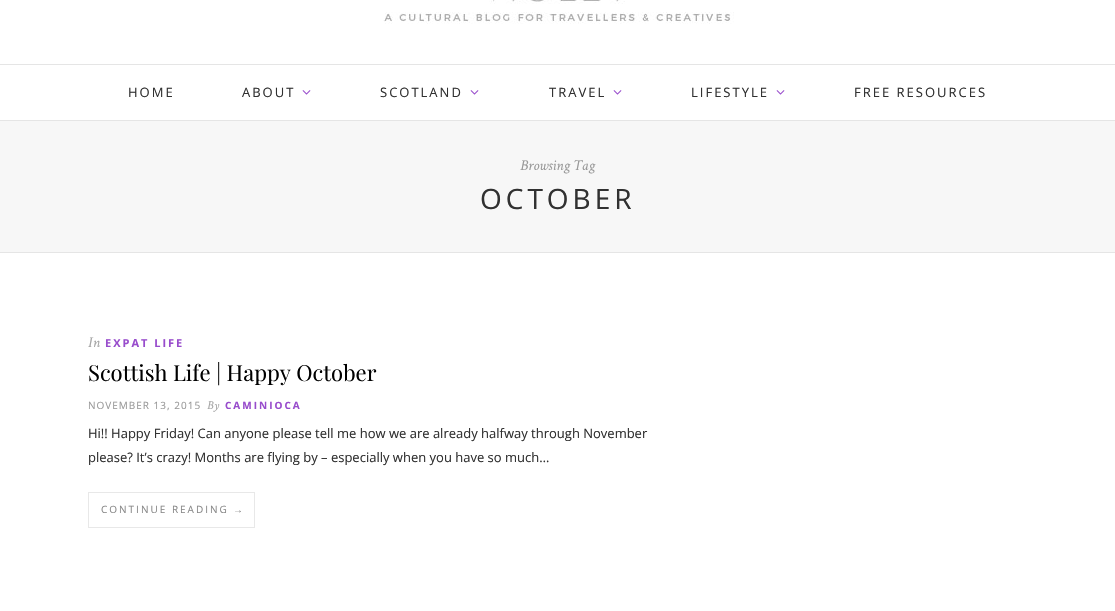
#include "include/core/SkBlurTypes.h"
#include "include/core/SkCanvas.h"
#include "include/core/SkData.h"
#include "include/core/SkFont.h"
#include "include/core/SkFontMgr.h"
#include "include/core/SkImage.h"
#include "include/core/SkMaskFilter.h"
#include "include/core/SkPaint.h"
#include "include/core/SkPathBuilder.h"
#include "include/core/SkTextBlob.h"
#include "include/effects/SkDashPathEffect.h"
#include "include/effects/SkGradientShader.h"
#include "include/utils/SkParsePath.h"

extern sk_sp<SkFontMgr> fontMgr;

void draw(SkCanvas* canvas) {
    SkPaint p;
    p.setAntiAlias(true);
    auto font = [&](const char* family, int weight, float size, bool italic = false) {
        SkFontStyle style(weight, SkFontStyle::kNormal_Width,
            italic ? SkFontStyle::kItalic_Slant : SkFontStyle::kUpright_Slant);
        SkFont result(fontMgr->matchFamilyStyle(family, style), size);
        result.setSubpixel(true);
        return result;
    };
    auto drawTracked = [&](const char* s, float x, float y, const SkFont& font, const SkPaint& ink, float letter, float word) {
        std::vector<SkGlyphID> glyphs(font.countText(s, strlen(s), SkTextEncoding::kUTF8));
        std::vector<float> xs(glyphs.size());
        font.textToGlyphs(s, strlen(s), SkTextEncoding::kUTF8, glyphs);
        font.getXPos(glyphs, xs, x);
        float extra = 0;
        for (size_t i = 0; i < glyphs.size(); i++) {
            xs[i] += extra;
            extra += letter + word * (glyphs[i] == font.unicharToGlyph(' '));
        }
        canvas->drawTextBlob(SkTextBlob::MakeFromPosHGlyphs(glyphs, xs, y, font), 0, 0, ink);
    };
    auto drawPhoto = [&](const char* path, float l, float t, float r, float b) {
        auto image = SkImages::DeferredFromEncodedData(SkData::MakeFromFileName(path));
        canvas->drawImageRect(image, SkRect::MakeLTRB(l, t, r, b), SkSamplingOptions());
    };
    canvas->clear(0xFFFFFFFF);
    drawPhoto("media/1.png", 383, 0, 734, 24);
    p.setColor(0xFFE5E5E5);
    canvas->drawRect(SkRect::MakeLTRB(0, 64, 1115, 65), p);
    canvas->drawRect(SkRect::MakeLTRB(0, 120, 1115, 121), p);
    auto font1 = font("Open Sans", 400, 13);
    p.setColor(0xFF313131);
    drawTracked("HOME", 128, 97, font1, p, 2, 0);
    drawTracked("ABOUT", 242, 97, font1, p, 2, 0);
    drawPhoto("media/2.png", 302, 90, 311, 95);
    drawTracked("SCOTLAND", 380, 97, font1, p, 2, 0);
    drawPhoto("media/2.png", 470, 90, 479, 95);
    drawTracked("TRAVEL", 549, 97, font1, p, 2, 0);
    drawPhoto("media/2.png", 613, 90, 622, 95);
    drawTracked("LIFESTYLE", 691, 97, font1, p, 2, 0);
    drawPhoto("media/2.png", 776, 90, 785, 95);
    drawTracked("FREE RESOURCES", 854, 97, font1, p, 2, 0);
    p.setColor(0xFFF7F7F7);
    canvas->drawRect(SkRect::MakeLTRB(0, 121, 1115, 252), p);
    p.setColor(0xFFE5E5E5);
    canvas->drawRect(SkRect::MakeLTRB(0, 252, 1115, 253), p);
    auto font2 = font("Crimson Text", 400, 15, true);
    p.setColor(0xFF999999);
    canvas->drawString("Browsing Tag", 520, 170, font2, p);
    auto font3 = font("Open Sans", 400, 28);
    p.setColor(0xFF313131);
    drawTracked("OCTOBER", 480, 209, font3, p, 4, 0);
    p.setColor(0xFFA5A5A5);
    canvas->drawString("In", 88, 347, font2, p);
    auto font4 = font("Open Sans", 700, 11);
    p.setColor(0xFF984CCC);
    drawTracked("EXPAT LIFE", 105, 347, font4, p, 2, 0);
    auto font5 = font("Playfair Display", 400, 22);
    p.setColor(0xFF000000);
    canvas->drawString("Scottish Life | Happy October", 88, 381, font5, p);
    auto font6 = font("Open Sans", 400, 10);
    p.setColor(0xFF999999);
    drawTracked("NOVEMBER 13, 2015", 88, 409, font6, p, 1, 0);
    auto font7 = font("Crimson Text", 400, 12, true);
    p.setColor(0xFFA5A5A5);
    canvas->drawString("By", 207, 409, font7, p);
    auto font8 = font("Open Sans", 700, 10);
    p.setColor(0xFF984CCC);
    drawTracked("CAMINIOCA", 225, 409, font8, p, 2, 0);
    p.setColor(0xFF313131);
    canvas->drawString("Hi!! Happy Friday! Can anyone please tell me how we are already halfway through November", 88, 438, font1, p);
    canvas->drawString("please? It’s crazy! Months are flying by – especially when you have so much…", 88, 462, font1, p);
    p.setStyle(SkPaint::kStroke_Style);
    p.setStrokeWidth(1);
    p.setColor(0xFFE8E8E8);
    canvas->drawRect(SkRect::MakeLTRB(88.5f, 492.5f, 254.5f, 527.5f), p);
    p.setStyle(SkPaint::kFill_Style);
    p.setColor(0xFF888888);
    drawTracked("CONTINUE READING", 101, 513, font6, p, 2, 0);
    auto font9 = font("Liberation Sans", 400, 10);
    drawTracked("→", 233, 513, font9, p, 2, 0);
}
